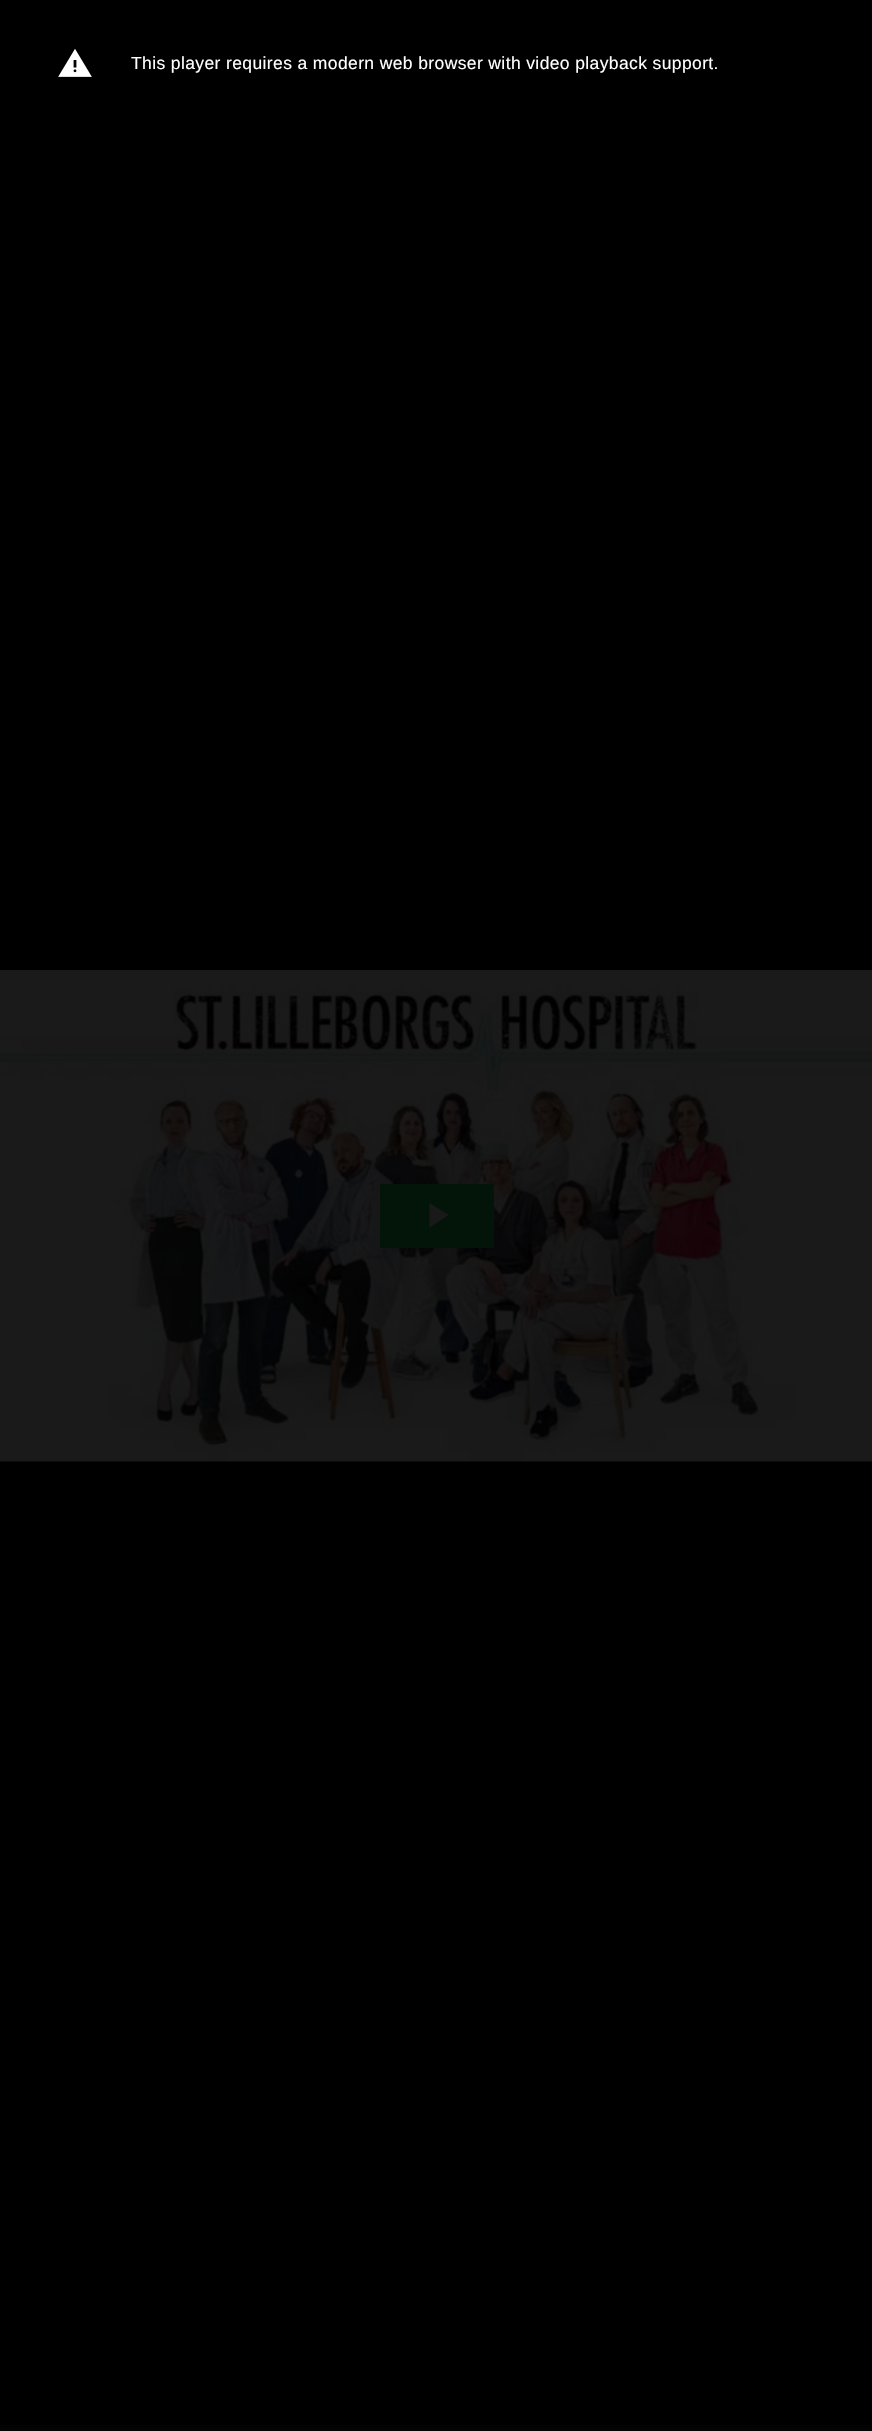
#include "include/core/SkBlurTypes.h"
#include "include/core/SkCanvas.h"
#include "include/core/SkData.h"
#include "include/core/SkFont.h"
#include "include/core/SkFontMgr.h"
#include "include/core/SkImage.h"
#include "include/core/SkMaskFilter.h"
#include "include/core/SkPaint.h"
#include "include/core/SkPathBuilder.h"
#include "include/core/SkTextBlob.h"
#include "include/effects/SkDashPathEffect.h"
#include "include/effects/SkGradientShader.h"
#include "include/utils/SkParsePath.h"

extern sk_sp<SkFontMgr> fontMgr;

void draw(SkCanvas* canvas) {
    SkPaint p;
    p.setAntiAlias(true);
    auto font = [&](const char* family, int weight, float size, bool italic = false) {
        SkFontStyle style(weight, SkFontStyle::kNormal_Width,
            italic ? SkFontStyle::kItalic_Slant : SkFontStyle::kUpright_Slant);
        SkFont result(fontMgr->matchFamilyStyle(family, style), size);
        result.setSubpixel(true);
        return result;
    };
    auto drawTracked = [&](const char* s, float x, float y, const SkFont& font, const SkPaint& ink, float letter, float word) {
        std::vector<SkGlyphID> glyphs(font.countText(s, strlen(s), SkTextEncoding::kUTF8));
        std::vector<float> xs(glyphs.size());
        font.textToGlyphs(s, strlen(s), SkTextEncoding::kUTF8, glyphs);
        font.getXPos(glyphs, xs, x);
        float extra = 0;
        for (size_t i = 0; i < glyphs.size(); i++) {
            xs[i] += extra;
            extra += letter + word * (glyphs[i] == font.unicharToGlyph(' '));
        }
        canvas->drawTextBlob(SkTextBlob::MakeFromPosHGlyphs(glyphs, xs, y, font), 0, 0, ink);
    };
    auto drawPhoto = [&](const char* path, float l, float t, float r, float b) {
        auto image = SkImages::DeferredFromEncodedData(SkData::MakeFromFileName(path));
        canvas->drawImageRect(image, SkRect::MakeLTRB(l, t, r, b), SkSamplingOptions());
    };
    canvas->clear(0xFF000000);
    drawPhoto("media/1.png", 58, 49, 92, 77);
    auto font1 = font("Liberation Sans", 400, 17.5f);
    p.setColor(0xFFFFFFFF);
    drawTracked("This player requires a modern web browser with video playback support.", 131, 69, font1, p, 0.38f, 0);
    drawPhoto("media/2.png", 0, 970, 872, 1461);
    p.setColor(0xFF0B0B0B);
    canvas->drawRect(SkRect::MakeLTRB(0, 1461, 872, 1462), p);
    p.setColor(0xFF031409);
    canvas->drawRect(SkRect::MakeLTRB(380, 1184, 494, 1248), p);
    p.setColor(0xFF191919);
    canvas->drawPath(SkPathBuilder().moveTo(429.5f, 1203).lineTo(429.5f, 1227.5f).lineTo(448.5f, 1215).close().detach(), p);
    p.setColor(0xFF030303);
    canvas->drawRect(SkRect::MakeLTRB(0, 2425, 872, 2431), p);
}
